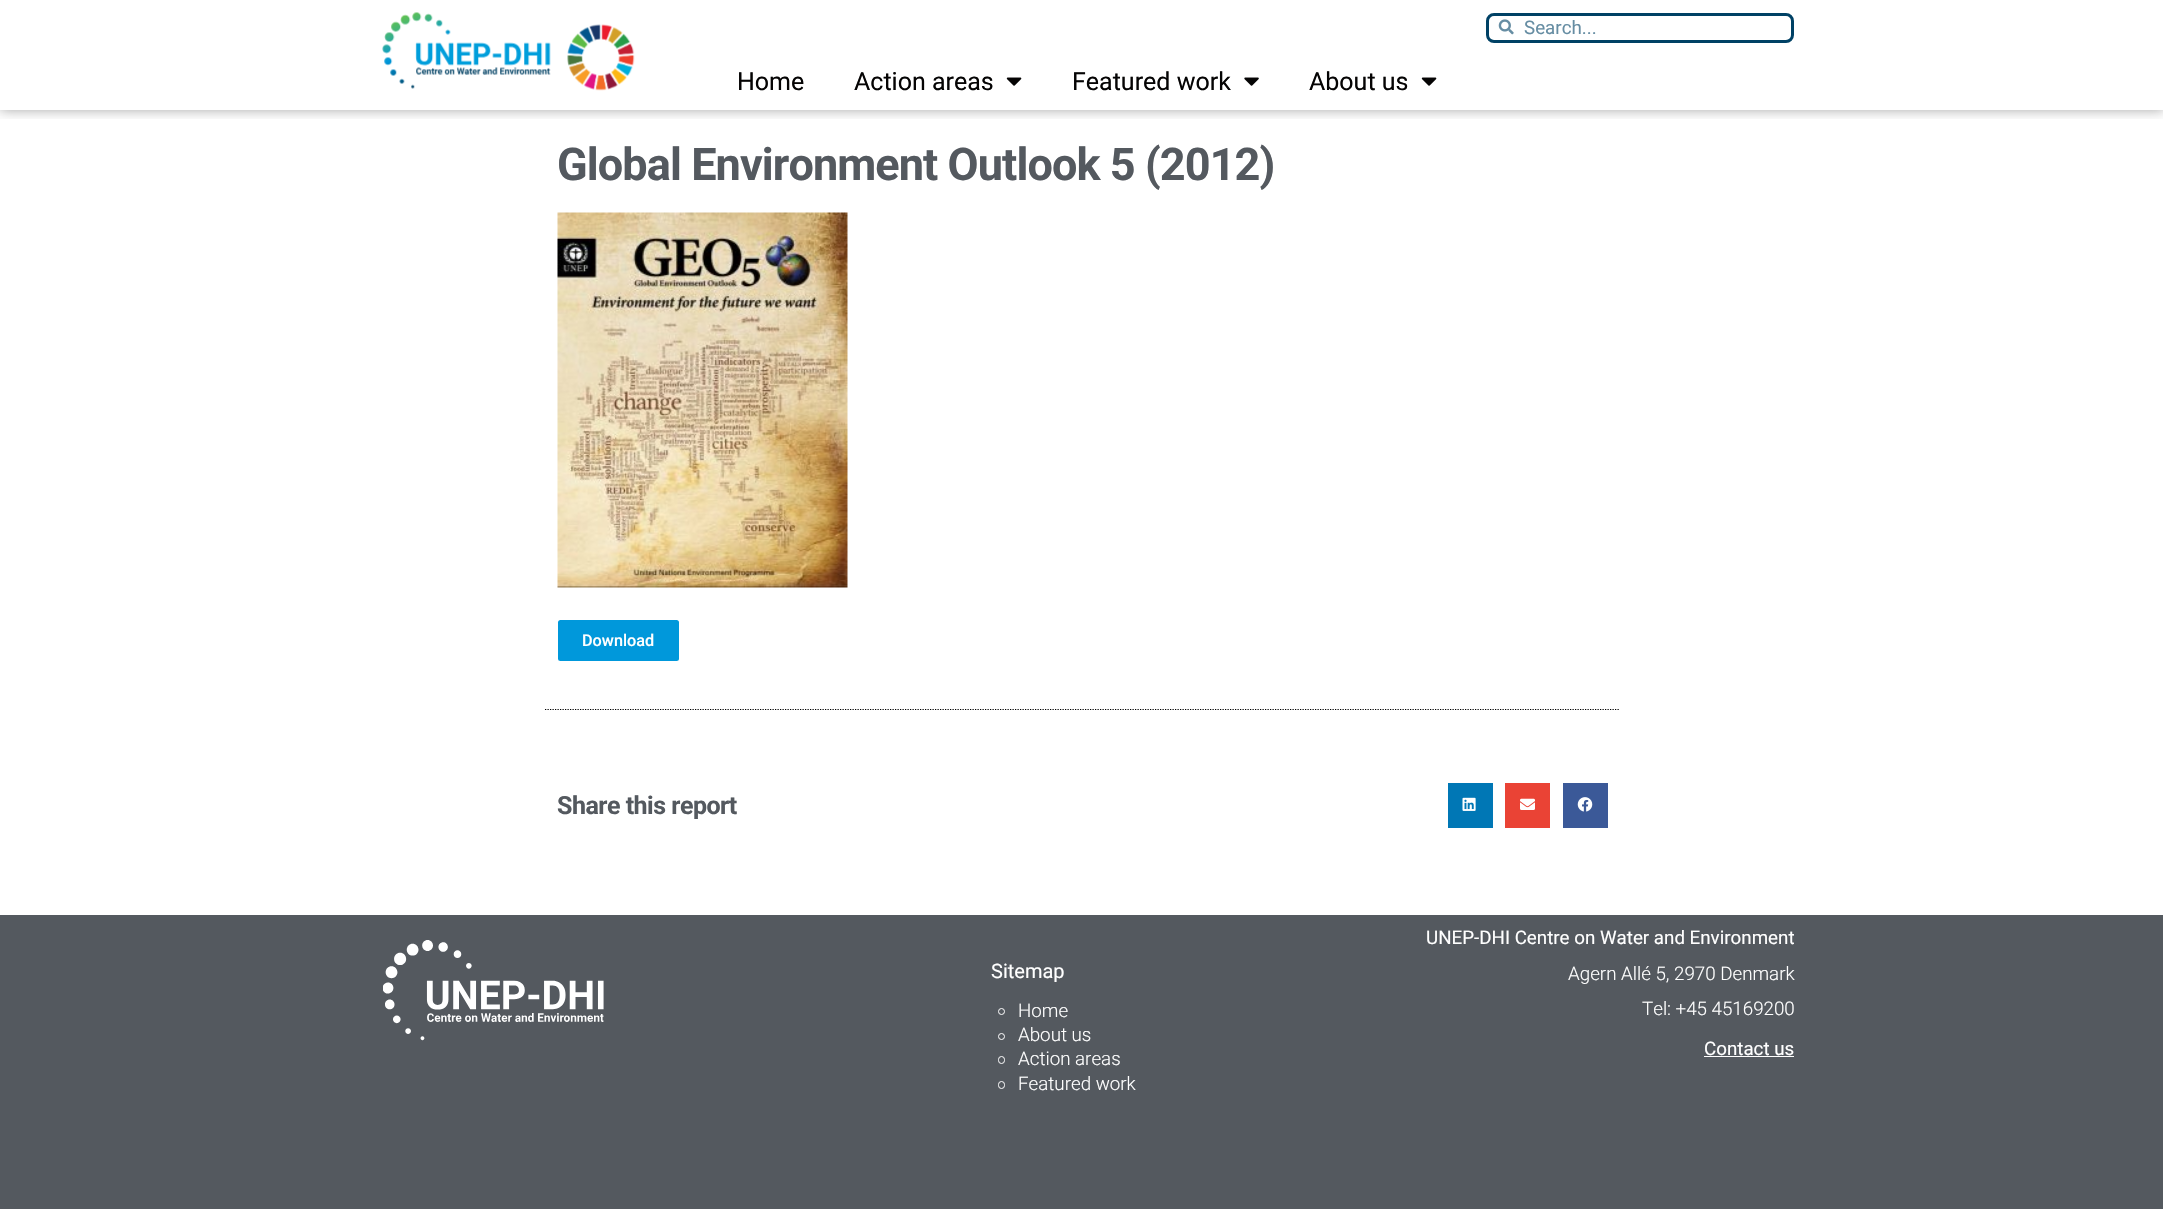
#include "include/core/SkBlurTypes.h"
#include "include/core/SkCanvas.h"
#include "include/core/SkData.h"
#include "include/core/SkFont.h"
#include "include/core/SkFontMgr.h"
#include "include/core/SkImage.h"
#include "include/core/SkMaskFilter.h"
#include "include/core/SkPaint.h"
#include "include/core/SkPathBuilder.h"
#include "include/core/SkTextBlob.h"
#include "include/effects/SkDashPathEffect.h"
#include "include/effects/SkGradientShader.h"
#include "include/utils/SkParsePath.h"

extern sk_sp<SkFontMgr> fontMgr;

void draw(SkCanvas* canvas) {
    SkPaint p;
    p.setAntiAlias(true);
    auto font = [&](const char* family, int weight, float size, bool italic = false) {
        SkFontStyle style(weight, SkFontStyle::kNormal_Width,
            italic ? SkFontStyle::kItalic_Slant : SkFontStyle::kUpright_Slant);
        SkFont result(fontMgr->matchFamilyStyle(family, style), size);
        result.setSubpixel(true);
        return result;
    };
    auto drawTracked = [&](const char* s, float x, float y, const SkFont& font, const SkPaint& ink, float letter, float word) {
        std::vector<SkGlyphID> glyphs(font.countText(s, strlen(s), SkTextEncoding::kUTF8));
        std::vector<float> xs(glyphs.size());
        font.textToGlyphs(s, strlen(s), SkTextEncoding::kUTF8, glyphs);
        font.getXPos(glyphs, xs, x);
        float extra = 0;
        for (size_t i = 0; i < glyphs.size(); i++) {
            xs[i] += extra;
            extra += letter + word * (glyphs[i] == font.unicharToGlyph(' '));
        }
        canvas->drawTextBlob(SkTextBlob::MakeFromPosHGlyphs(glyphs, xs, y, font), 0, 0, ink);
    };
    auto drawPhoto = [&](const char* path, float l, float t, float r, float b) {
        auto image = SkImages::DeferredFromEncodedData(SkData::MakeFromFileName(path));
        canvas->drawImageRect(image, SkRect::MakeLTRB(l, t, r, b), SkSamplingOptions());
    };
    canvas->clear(0xFFFFFFFF);
    canvas->save();
    canvas->clipRect(SkRect::MakeLTRB(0, 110, 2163, 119));
    p.setColor(0x59000000);
    p.setMaskFilter(SkMaskFilter::MakeBlur(kNormal_SkBlurStyle, 6));
    canvas->drawRect(SkRect::MakeLTRB(0, 0, 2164, 110), p);
    p.setMaskFilter(nullptr);
    canvas->restore();
    drawPhoto("media/1.png", 382, 12, 551, 89);
    drawPhoto("media/2.png", 567, 24, 635, 91);
    auto font1 = font("Roboto", 400, 25);
    p.setColor(0xFF050404);
    canvas->drawString("Home", 737, 90, font1, p);
    canvas->drawString("Action areas", 854, 90, font1, p);
    drawPhoto("media/3.png", 1006, 77, 1022, 86);
    canvas->drawString("Featured work", 1072, 90, font1, p);
    drawPhoto("media/4.png", 1244, 77, 1259, 86);
    canvas->drawString("About us", 1309, 90, font1, p);
    drawPhoto("media/3.png", 1421, 77, 1437, 86);
    p.setStyle(SkPaint::kStroke_Style);
    p.setStrokeWidth(3);
    p.setColor(0xFF004165);
    canvas->drawRoundRect(SkRect::MakeLTRB(1487.5f, 14.5f, 1792.5f, 41.5f), 6.5f, 6.5f, p);
    drawPhoto("media/5.png", 1498, 19, 1514, 35);
    auto font2 = font("Roboto", 400, 18.75f);
    p.setStyle(SkPaint::kFill_Style);
    p.setColor(0xFF668DA3);
    canvas->drawString("Search...", 1524, 34, font2, p);
    auto font3 = font("Roboto", 700, 45);
    p.setColor(0xFF54595F);
    drawTracked("Global Environment Outlook 5 (2012)", 557, 180, font3, p, -0.9f, 0);
    drawPhoto("media/6.png", 557, 212, 848, 588);
    p.setColor(0xFF0098DB);
    canvas->drawRoundRect(SkRect::MakeLTRB(558, 620, 679, 661), 2.5f, 2.5f, p);
    auto font4 = font("Roboto", 500, 16.25f);
    p.setColor(0xFFFFFFFF);
    canvas->drawString("Download", 582, 646, font4, p);
    p.setStyle(SkPaint::kStroke_Style);
    p.setStrokeWidth(1.2f);
    p.setColor(0xFF000000);
    p.setPathEffect(SkDashPathEffect::Make({{1.25f, 1.25f}}, 0));
    canvas->drawPath(SkPathBuilder().moveTo(545, 709.5f).lineTo(1620, 709.5f).detach(), p);
    p.setPathEffect(nullptr);
    auto font5 = font("Roboto", 700, 25);
    p.setStyle(SkPaint::kFill_Style);
    p.setColor(0xFF54595F);
    drawTracked("Share this report", 557, 814, font5, p, -0.5f, 0);
    p.setColor(0xFF0077B5);
    canvas->drawRect(SkRect::MakeLTRB(1448, 783, 1493, 828), p);
    drawPhoto("media/7.png", 1462, 797, 1476, 811);
    p.setColor(0xFFEA4335);
    canvas->drawRect(SkRect::MakeLTRB(1505, 783, 1550, 828), p);
    drawPhoto("media/8.png", 1520, 798, 1535, 810);
    p.setColor(0xFF3B5998);
    canvas->drawRect(SkRect::MakeLTRB(1563, 783, 1608, 828), p);
    drawPhoto("media/9.png", 1577, 797, 1593, 812);
    p.setColor(0xFF54595F);
    canvas->drawRect(SkRect::MakeLTRB(0, 915, 2163, 1209), p);
    drawPhoto("media/10.png", 383, 940, 604, 1041);
    auto font6 = font("Roboto", 400, 20);
    p.setColor(0xFFFFFFFF);
    canvas->drawString("Sitemap", 991, 978, font6, p);
    p.setStyle(SkPaint::kStroke_Style);
    p.setStrokeWidth(1);
    canvas->drawCircle(1001.5f, 1011.5f, 3, p);
    auto font7 = font("Roboto", 300, 18.75f);
    p.setStyle(SkPaint::kFill_Style);
    canvas->drawString("Home", 1018, 1017, font7, p);
    p.setStyle(SkPaint::kStroke_Style);
    canvas->drawCircle(1001.5f, 1036.5f, 3, p);
    p.setStyle(SkPaint::kFill_Style);
    canvas->drawString("About us", 1018, 1041, font7, p);
    p.setStyle(SkPaint::kStroke_Style);
    canvas->drawRoundRect(SkRect::MakeLTRB(998.5f, 1056.5f, 1004.5f, 1063.5f), 3, 3, p);
    p.setStyle(SkPaint::kFill_Style);
    canvas->drawString("Action areas", 1018, 1065, font7, p);
    p.setStyle(SkPaint::kStroke_Style);
    canvas->drawRoundRect(SkRect::MakeLTRB(998.5f, 1081.5f, 1004.5f, 1088.5f), 3, 3, p);
    p.setStyle(SkPaint::kFill_Style);
    canvas->drawString("Featured work", 1018, 1090, font7, p);
    canvas->drawString("UNEP-DHI Centre on Water and Environment", 1426, 944, font2, p);
    canvas->drawString("Agern Allé 5, 2970 Denmark", 1568, 980, font7, p);
    canvas->drawString("Tel: +45 45169200", 1642, 1015, font7, p);
    canvas->drawString("Contact us", 1704, 1055, font2, p);
    canvas->drawRect(SkRect::MakeLTRB(1704, 1056, 1794, 1057), p);
}
